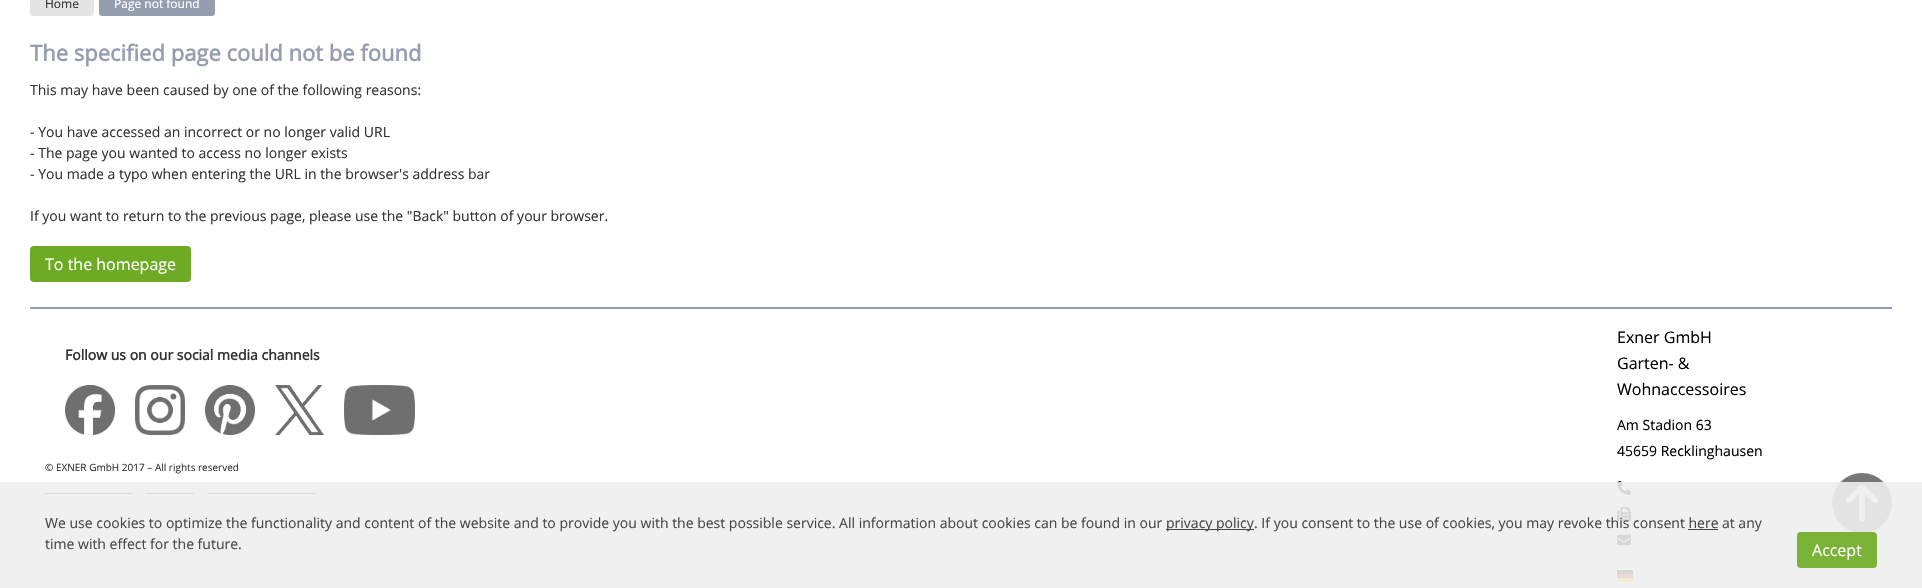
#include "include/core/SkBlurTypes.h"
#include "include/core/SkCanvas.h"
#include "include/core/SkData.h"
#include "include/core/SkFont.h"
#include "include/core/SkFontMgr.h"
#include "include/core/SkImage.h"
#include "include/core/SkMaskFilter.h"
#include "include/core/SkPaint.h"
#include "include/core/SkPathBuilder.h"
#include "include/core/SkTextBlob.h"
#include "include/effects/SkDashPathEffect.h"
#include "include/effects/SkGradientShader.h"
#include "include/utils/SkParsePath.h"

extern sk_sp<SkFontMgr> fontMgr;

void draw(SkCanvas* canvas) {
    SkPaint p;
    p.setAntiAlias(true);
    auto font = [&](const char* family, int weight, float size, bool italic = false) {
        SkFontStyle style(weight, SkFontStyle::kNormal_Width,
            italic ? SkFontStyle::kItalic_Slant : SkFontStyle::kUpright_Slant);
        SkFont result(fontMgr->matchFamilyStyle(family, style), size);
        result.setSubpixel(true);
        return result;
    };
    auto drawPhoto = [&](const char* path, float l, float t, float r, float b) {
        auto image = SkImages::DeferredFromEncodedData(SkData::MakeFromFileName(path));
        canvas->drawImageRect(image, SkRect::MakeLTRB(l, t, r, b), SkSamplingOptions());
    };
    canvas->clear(0xFFFFFFFF);
    p.setColor(0xFFE5E5E5);
    canvas->drawRoundRect(SkRect::MakeLTRB(30, -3, 94, 16), 3, 3, p);
    auto font1 = font("Open Sans", 400, 12);
    p.setColor(0xFF333333);
    canvas->drawString("Home", 45, 8, font1, p);
    p.setColor(0xFF959EAF);
    canvas->drawRoundRect(SkRect::MakeLTRB(99, -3, 215, 16), 3, 3, p);
    p.setColor(0xFFFFFFFF);
    canvas->drawString("Page not found", 114, 8, font1, p);
    auto font2 = font("Open Sans", 700, 22);
    p.setColor(0xFF959EAF);
    canvas->drawString("The specified page could not be found", 30, 61, font2, p);
    auto font3 = font("Open Sans", 400, 14);
    p.setColor(0xFF333333);
    {
        const struct { const char* s; float x, y; } items[] = {
            {"This may have been caused by one of the following reasons:", 30, 95},
            {"- You have accessed an incorrect or no longer valid URL", 30, 137},
            {"- The page you wanted to access no longer exists", 30, 158},
            {"- You made a typo when entering the URL in the browser's address bar", 30, 179},
            {"If you want to return to the previous page, please use the \"Back\" button of your browser.", 30, 221},
        };
        for (auto [s, x, y] : items) {
            canvas->drawString(s, x, y, font3, p);
        }
    }
    p.setColor(0xFF6EAB24);
    canvas->drawRoundRect(SkRect::MakeLTRB(30, 246, 191, 282), 4, 4, p);
    auto font4 = font("Open Sans", 400, 16);
    p.setColor(0xFFFFFFFF);
    canvas->drawString("To the homepage", 45, 270, font4, p);
    drawPhoto("media/1.png", 1832, 473, 1892, 533);
    p.setColor(0xFF959EAF);
    canvas->drawRect(SkRect::MakeLTRB(30, 307, 1892, 309), p);
    auto font5 = font("Open Sans", 700, 14);
    p.setColor(0xFF333333);
    canvas->drawString("Follow us on our social media channels", 65, 360, font5, p);
    drawPhoto("media/2.png", 65, 385, 115, 435);
    drawPhoto("media/3.png", 135, 385, 185, 435);
    drawPhoto("media/4.png", 205, 385, 255, 435);
    drawPhoto("media/5.png", 275, 385, 324, 435);
    drawPhoto("media/6.png", 344, 385, 415, 435);
    auto font6 = font("Open Sans", 400, 10);
    canvas->drawString("© EXNER GmbH 2017 – All rights reserved", 45, 471, font6, p);
    {
        const struct { float l, t, r, b; SkColor color; } items[] = {
            {45, 493, 133, 494, 0xFF333333},
            {146, 493, 194, 494, 0xFF333333},
            {208, 493, 316, 494, 0xFF333333},
        };
        for (auto [l, t, r, b, color] : items) {
            p.setColor(color);
            canvas->drawRect(SkRect::MakeLTRB(l, t, r, b), p);
        }
    }
    p.setColor(0xFF000000);
    {
        const struct { const char* s; float x, y; } items[] = {
            {"Exner GmbH", 1617, 343},
            {"Garten- &", 1617, 369},
            {"Wohnaccessoires", 1617, 395},
        };
        for (auto [s, x, y] : items) {
            canvas->drawString(s, x, y, font4, p);
        }
    }
    canvas->drawString("Am Stadion 63", 1617, 430, font3, p);
    canvas->drawString("45659 Recklinghausen", 1617, 456, font3, p);
    drawPhoto("media/7.png", 1617, 481, 1631, 495);
    drawPhoto("media/8.png", 1617, 507, 1631, 521);
    drawPhoto("media/9.png", 1617, 534, 1631, 546);
    drawPhoto("media/10.png", 1617, 570, 1633, 582);
    p.setColor(0xE6EEEEEE);
    canvas->drawRect(SkRect::MakeLTRB(0, 482, 1922, 588), p);
    p.setColor(0xFF474747);
    canvas->drawString("We use cookies to optimize the functionality and content of the website and to provide you with the best possible service. All information about cookies can be found in our", 45, 528, font3, p);
    canvas->drawRect(SkRect::MakeLTRB(1166, 529, 1254, 530), p);
    canvas->drawString("privacy policy", 1166, 528, font3, p);
    canvas->drawString(". If you consent to the use of cookies, you may revoke this consent here", 1254, 528, font3, p);
    canvas->drawRect(SkRect::MakeLTRB(1688, 529, 1718, 530), p);
    canvas->drawString("at any", 1722, 528, font3, p);
    canvas->drawString("time with effect for the future.", 45, 549, font3, p);
    p.setColor(0xE66EAB24);
    canvas->drawRoundRect(SkRect::MakeLTRB(1797, 532, 1877, 568), 4, 4, p);
    p.setColor(0xFFFFFFFF);
    canvas->drawString("Accept", 1812, 556, font4, p);
}
